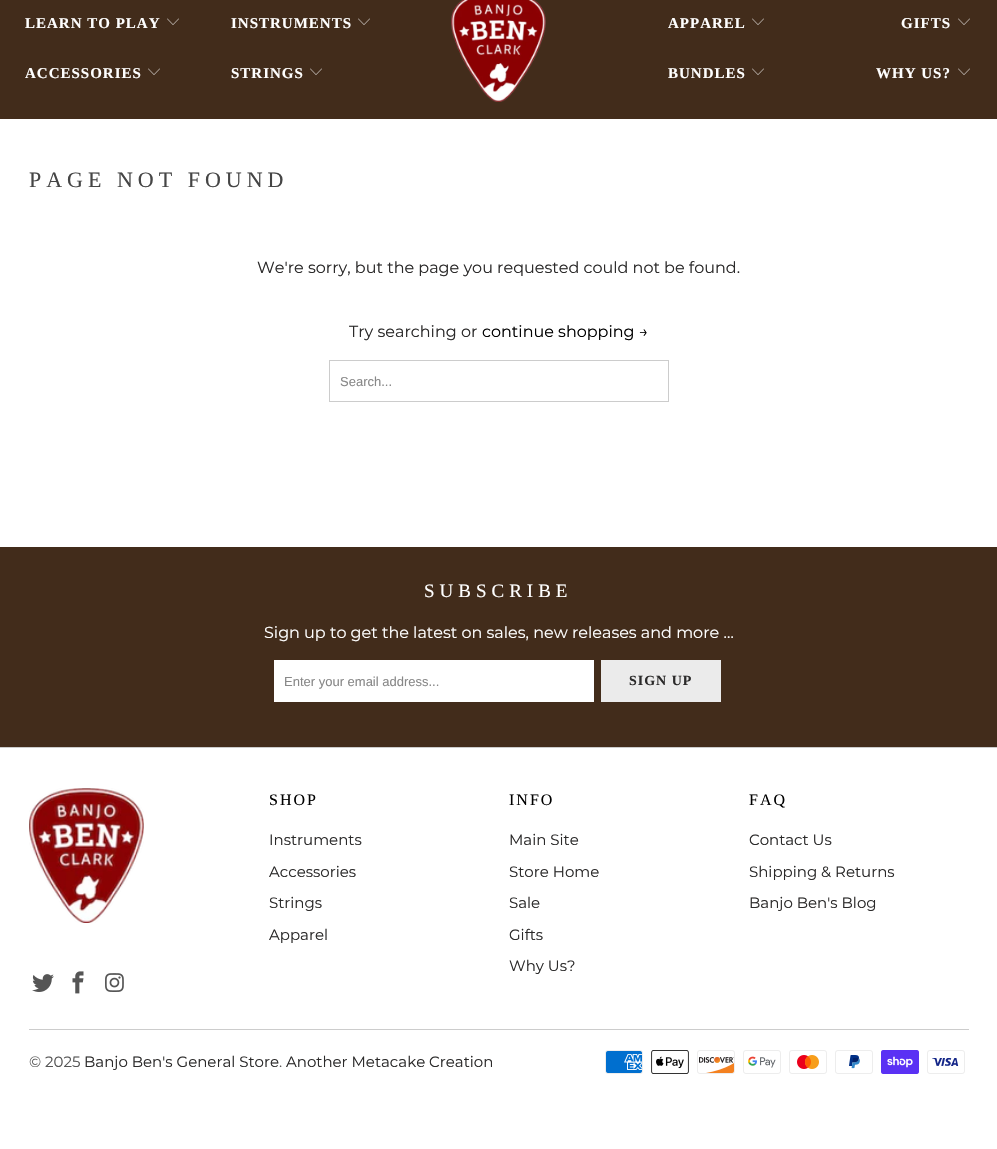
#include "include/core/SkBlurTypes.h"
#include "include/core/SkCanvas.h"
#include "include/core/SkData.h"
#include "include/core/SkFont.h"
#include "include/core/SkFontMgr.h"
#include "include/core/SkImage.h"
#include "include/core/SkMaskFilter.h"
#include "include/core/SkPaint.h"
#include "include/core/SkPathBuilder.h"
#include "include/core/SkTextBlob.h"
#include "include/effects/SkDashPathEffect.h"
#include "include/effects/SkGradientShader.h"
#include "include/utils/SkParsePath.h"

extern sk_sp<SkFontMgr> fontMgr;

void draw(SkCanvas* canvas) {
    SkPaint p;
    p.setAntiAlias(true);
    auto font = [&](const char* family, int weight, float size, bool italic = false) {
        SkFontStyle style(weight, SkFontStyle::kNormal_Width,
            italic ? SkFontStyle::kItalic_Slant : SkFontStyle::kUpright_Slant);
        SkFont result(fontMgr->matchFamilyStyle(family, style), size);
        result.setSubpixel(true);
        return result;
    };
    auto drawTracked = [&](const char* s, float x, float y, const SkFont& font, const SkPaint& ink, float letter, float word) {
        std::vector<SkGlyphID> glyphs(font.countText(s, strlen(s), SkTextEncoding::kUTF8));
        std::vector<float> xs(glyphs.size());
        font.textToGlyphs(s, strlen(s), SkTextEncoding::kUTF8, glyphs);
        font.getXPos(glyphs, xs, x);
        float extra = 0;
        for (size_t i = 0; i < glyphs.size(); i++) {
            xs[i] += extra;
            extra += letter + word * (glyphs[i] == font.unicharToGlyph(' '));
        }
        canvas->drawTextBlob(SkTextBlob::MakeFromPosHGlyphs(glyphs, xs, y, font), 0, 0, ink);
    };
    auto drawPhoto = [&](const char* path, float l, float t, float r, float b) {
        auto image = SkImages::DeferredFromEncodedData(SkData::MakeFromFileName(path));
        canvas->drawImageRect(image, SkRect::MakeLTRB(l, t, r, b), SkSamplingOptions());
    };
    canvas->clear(0xFFFFFFFF);
    p.setColor(0xFF422C1B);
    canvas->drawRect(SkRect::MakeLTRB(0, 0, 997, 119), p);
    auto font1 = font("Liberation Serif", 700, 15);
    p.setColor(0xFFFFFFFF);
    drawTracked("LEARN TO PLAY", 25, 28, font1, p, 1, 0);
    drawPhoto("media/1.png", 167, 18, 179, 25);
    drawTracked("INSTRUMENTS", 231, 28, font1, p, 1, 0);
    drawPhoto("media/1.png", 358, 18, 370, 25);
    drawTracked("ACCESSORIES", 25, 78, font1, p, 1, 0);
    drawPhoto("media/1.png", 148, 68, 160, 75);
    drawTracked("STRINGS", 231, 78, font1, p, 1, 0);
    drawPhoto("media/1.png", 310, 68, 322, 75);
    drawPhoto("media/2.png", 451, 0, 546, 102);
    drawTracked("APPAREL", 668, 28, font1, p, 1, 0);
    drawPhoto("media/1.png", 752, 18, 764, 25);
    drawTracked("GIFTS", 901, 28, font1, p, 1, 0);
    drawPhoto("media/1.png", 958, 18, 970, 25);
    drawTracked("BUNDLES", 668, 78, font1, p, 1, 0);
    drawPhoto("media/1.png", 752, 68, 764, 75);
    drawTracked("WHY US?", 876, 78, font1, p, 1, 0);
    drawPhoto("media/1.png", 958, 68, 970, 75);
    auto font2 = font("Liberation Serif", 400, 22);
    p.setColor(0xFF454545);
    drawTracked("PAGE NOT FOUND", 29, 187, font2, p, 5, 0);
    auto font3 = font("Montserrat", 400, 16);
    p.setColor(0xFF2B2A2A);
    canvas->drawString("We're sorry, but the page you requested could not be found.", 257, 273, font3, p);
    canvas->drawString("Try searching or", 349, 337, font3, p);
    p.setColor(0xFF000000);
    canvas->drawString("continue shopping →", 482, 337, font3, p);
    p.setStyle(SkPaint::kStroke_Style);
    p.setStrokeWidth(1);
    p.setColor(0xFFCCCCCC);
    canvas->drawRect(SkRect::MakeLTRB(329.5f, 360.5f, 668.5f, 401.5f), p);
    auto font4 = font("Liberation Sans", 400, 13);
    p.setStyle(SkPaint::kFill_Style);
    p.setColor(0xFF888888);
    canvas->drawString("Search...", 340, 386, font4, p);
    p.setColor(0xFF422C1B);
    canvas->drawRect(SkRect::MakeLTRB(0, 547, 997, 747), p);
    auto font5 = font("Liberation Serif", 400, 19);
    p.setColor(0xFFFFFFFF);
    drawTracked("SUBSCRIBE", 424, 597, font5, p, 5, 0);
    canvas->drawString("Sign up to get the latest on sales, new releases and more …", 264, 638, font3, p);
    canvas->drawRect(SkRect::MakeLTRB(274, 660, 594, 702), p);
    p.setColor(0xFF888888);
    canvas->drawString("Enter your email address...", 284, 686, font4, p);
    p.setColor(0xFFEBEBEB);
    canvas->drawRect(SkRect::MakeLTRB(601, 660, 721, 702), p);
    auto font6 = font("Liberation Serif", 700, 14);
    p.setColor(0xFF2B2A2A);
    drawTracked("SIGN UP", 629, 685, font6, p, 1, 0);
    p.setColor(0xFFCCCCCC);
    canvas->drawRect(SkRect::MakeLTRB(0, 747, 997, 748), p);
    drawPhoto("media/3.png", 29, 788, 144, 923);
    drawPhoto("media/4.png", 32, 974, 54, 992);
    drawPhoto("media/5.png", 72, 971, 84, 994);
    drawPhoto("media/6.png", 105, 973, 124, 992);
    auto font7 = font("Liberation Serif", 400, 16);
    p.setColor(0xFF000000);
    drawTracked("SHOP", 269, 805, font7, p, 2, 0);
    auto font8 = font("Montserrat", 400, 15);
    p.setColor(0xFF2B2A2A);
    {
        const struct { const char* s; float x, y; } items[] = {
            {"Instruments", 269, 845},
            {"Accessories", 269, 877},
            {"Strings", 269, 908},
            {"Apparel", 269, 940},
        };
        for (auto [s, x, y] : items) {
            canvas->drawString(s, x, y, font8, p);
        }
    }
    p.setColor(0xFF000000);
    drawTracked("INFO", 509, 805, font7, p, 2, 0);
    p.setColor(0xFF2B2A2A);
    {
        const struct { const char* s; float x, y; } items[] = {
            {"Main Site", 509, 845},
            {"Store Home", 509, 877},
            {"Sale", 509, 908},
            {"Gifts", 509, 940},
            {"Why Us?", 509, 971},
        };
        for (auto [s, x, y] : items) {
            canvas->drawString(s, x, y, font8, p);
        }
    }
    p.setColor(0xFF000000);
    drawTracked("FAQ", 749, 805, font7, p, 2, 0);
    p.setColor(0xFF2B2A2A);
    {
        const struct { const char* s; float x, y; } items[] = {
            {"Contact Us", 749, 845},
            {"Shipping & Returns", 749, 877},
            {"Banjo Ben's Blog", 749, 908},
        };
        for (auto [s, x, y] : items) {
            canvas->drawString(s, x, y, font8, p);
        }
    }
    p.setColor(0xFFCCCCCC);
    canvas->drawRect(SkRect::MakeLTRB(29, 1029, 969, 1030), p);
    p.setColor(0xFF555555);
    canvas->drawString("© 2025", 29, 1067, font8, p);
    p.setColor(0xFF2B2A2A);
    canvas->drawString("Banjo Ben's General Store", 84, 1067, font8, p);
    p.setColor(0xFF555555);
    canvas->drawString(".", 279, 1067, font8, p);
    p.setColor(0xFF2B2A2A);
    canvas->drawString("Another Metacake Creation", 286, 1067, font8, p);
    drawPhoto("media/7.png", 605, 1050, 643, 1074);
    drawPhoto("media/8.png", 651, 1050, 689, 1074);
    drawPhoto("media/9.png", 697, 1050, 735, 1074);
    drawPhoto("media/10.png", 743, 1050, 781, 1074);
    drawPhoto("media/11.png", 789, 1050, 827, 1074);
    drawPhoto("media/12.png", 835, 1050, 873, 1074);
    drawPhoto("media/13.png", 881, 1050, 919, 1074);
    drawPhoto("media/14.png", 927, 1050, 965, 1074);
}
